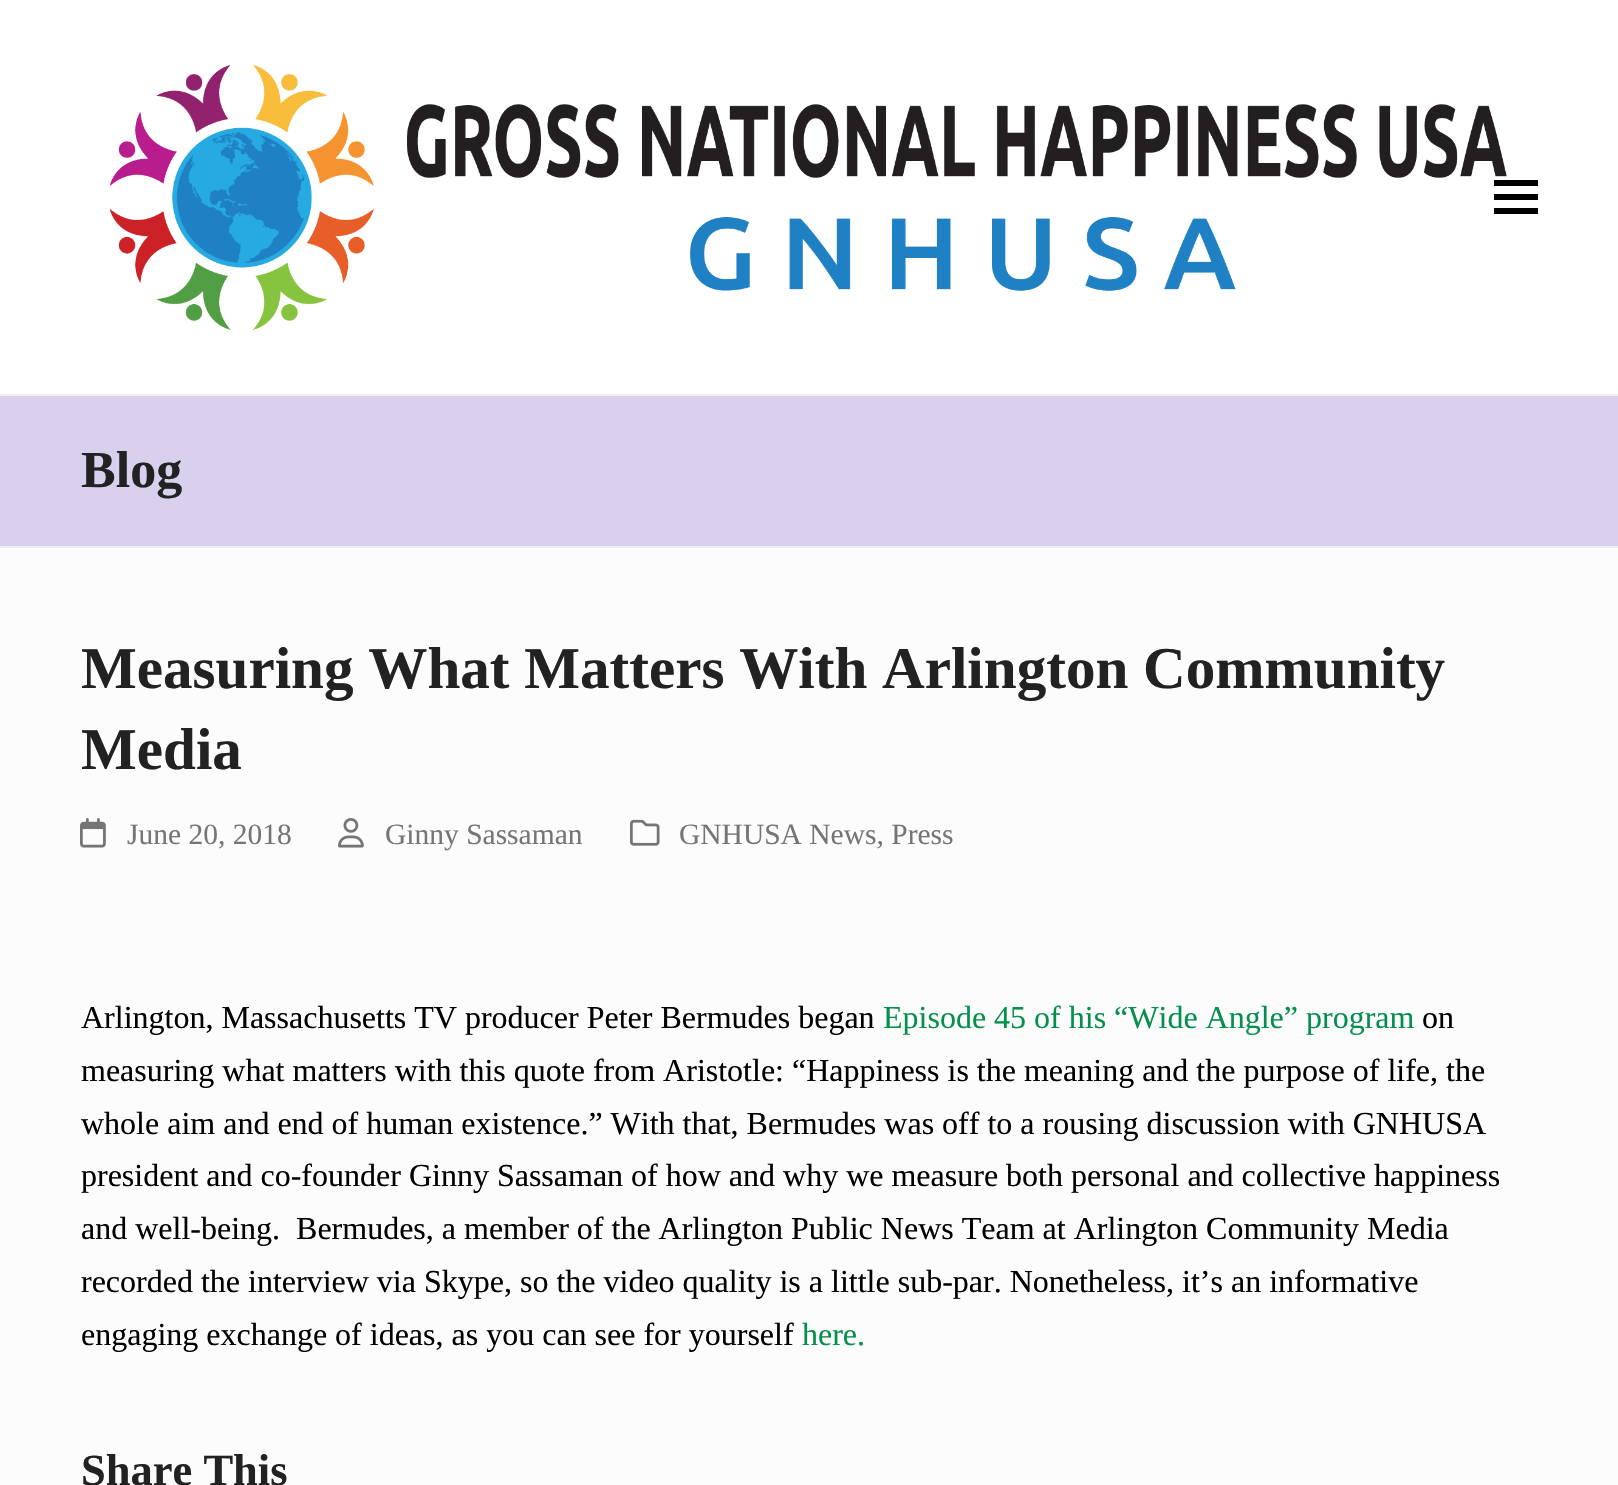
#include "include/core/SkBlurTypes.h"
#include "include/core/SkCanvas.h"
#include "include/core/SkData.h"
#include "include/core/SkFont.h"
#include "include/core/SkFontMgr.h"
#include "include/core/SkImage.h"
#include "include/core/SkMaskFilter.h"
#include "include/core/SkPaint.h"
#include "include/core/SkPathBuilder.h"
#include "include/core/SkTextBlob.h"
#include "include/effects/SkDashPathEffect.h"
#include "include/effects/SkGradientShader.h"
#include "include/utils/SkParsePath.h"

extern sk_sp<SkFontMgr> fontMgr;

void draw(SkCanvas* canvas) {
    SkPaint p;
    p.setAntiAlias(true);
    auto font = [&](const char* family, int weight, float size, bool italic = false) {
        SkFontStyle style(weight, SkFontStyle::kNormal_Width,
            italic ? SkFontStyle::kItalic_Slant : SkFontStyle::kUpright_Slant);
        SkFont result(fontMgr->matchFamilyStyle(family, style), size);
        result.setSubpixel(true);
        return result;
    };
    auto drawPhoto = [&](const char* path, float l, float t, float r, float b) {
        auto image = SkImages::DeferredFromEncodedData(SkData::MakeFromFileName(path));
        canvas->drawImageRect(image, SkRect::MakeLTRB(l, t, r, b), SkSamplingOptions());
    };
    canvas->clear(0xFFFCFCFC);
    p.setColor(0xFFFFFFFF);
    canvas->drawRect(SkRect::MakeLTRB(0, 0, 1618, 394), p);
    drawPhoto("media/1.png", 110, 65, 1507, 330);
    {
        const struct { float l, t, r, b; SkColor color; } items[] = {
            {1494, 194, 1538, 200, 0xFF000000},
            {1494, 180, 1538, 186, 0xFF000000},
            {1494, 208, 1538, 214, 0xFF000000},
            {0, 396, 1618, 546, 0xFFD8D0ED},
            {0, 394, 1618, 396, 0xFFEEEEEE},
            {0, 546, 1618, 548, 0xFFEEEEEE},
        };
        for (auto [l, t, r, b, color] : items) {
            p.setColor(color);
            canvas->drawRect(SkRect::MakeLTRB(l, t, r, b), p);
        }
    }
    auto font1 = font("Liberation Serif", 700, 52);
    p.setColor(0xFF222222);
    canvas->drawString("Blog", 81, 487, font1, p);
    auto font2 = font("Liberation Serif", 700, 59.1f);
    canvas->drawString("Measuring What Matters With Arlington Community", 81, 688, font2, p);
    canvas->drawString("Media", 81, 769, font2, p);
    drawPhoto("media/2.png", 80, 818, 106, 848);
    auto font3 = font("Liberation Serif", 400, 29.5f);
    p.setColor(0xFF757575);
    canvas->drawString("June 20, 2018", 127, 844, font3, p);
    drawPhoto("media/3.png", 338, 818, 364, 848);
    canvas->drawString("Ginny Sassaman", 385, 844, font3, p);
    drawPhoto("media/4.png", 630, 819, 660, 846);
    canvas->drawString("GNHUSA News, Press", 679, 844, font3, p);
    auto font4 = font("Liberation Serif", 400, 32);
    p.setColor(0xFF000000);
    canvas->drawString("Arlington, Massachusetts TV producer Peter Bermudes began", 81, 1028, font4, p);
    p.setColor(0xFF048F4C);
    canvas->drawString("Episode 45 of his “Wide Angle” program", 883, 1028, font4, p);
    p.setColor(0xFF000000);
    {
        const struct { const char* s; float x, y; } items[] = {
            {"on", 1422, 1028},
            {"measuring what matters with this quote from Aristotle: “Happiness is the meaning and the purpose of life, the", 81, 1081},
            {"whole aim and end of human existence.” With that, Bermudes was off to a rousing discussion with GNHUSA", 81, 1134},
            {"president and co-founder Ginny Sassaman of how and why we measure both personal and collective happiness", 81, 1186},
            {"and well-being.  Bermudes, a member of the Arlington Public News Team at Arlington Community Media", 81, 1239},
            {"recorded the interview via Skype, so the video quality is a little sub-par. Nonetheless, it’s an informative", 81, 1292},
            {"engaging exchange of ideas, as you can see for yourself", 81, 1345},
        };
        for (auto [s, x, y] : items) {
            canvas->drawString(s, x, y, font4, p);
        }
    }
    p.setColor(0xFF048F4C);
    canvas->drawString("here.", 802, 1345, font4, p);
    auto font5 = font("Liberation Serif", 700, 44.5f);
    p.setColor(0xFF222222);
    canvas->drawString("Share This", 81, 1485, font5, p);
}
